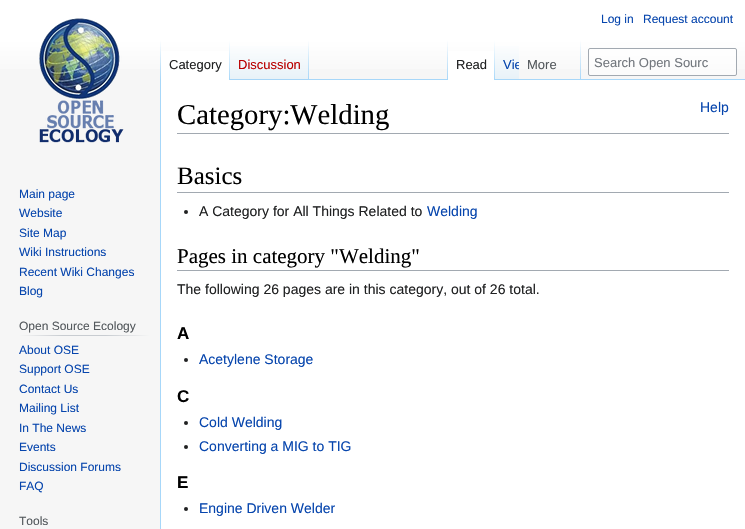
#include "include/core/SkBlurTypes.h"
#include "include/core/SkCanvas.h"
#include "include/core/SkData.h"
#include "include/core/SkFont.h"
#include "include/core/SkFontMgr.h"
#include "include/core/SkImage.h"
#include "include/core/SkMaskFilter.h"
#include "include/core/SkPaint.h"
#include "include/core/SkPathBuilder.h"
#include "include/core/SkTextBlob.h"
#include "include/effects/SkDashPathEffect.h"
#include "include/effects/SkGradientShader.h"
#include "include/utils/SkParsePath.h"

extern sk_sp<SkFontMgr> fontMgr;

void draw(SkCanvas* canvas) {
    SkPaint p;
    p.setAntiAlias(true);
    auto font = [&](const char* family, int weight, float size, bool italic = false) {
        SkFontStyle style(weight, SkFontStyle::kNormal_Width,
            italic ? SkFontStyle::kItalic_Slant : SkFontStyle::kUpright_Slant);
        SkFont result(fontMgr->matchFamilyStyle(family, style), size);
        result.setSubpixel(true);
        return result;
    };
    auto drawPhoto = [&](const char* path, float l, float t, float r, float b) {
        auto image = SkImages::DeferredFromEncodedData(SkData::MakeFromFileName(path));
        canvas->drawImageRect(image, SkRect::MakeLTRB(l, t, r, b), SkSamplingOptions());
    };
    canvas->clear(0xFFF6F6F6);
    {
        const SkColor colors[] = {0xFFFFFFFF, 0xFFF6F6F6};
        const float stops[] = {0.5f, 1};
        const SkPoint ends[] = {{373, 0}, {373, 80}};
        p.setShader(SkGradientShader::MakeLinear(ends, colors, stops, 2, SkTileMode::kClamp));
        p.setAlpha(255);
    }
    canvas->drawRect(SkRect::MakeLTRB(0, 0, 745, 69), p);
    auto font1 = font("Liberation Sans", 400, 12);
    p.setShader(nullptr);
    p.setColor(0xFF0645AD);
    canvas->drawString("Log in", 601, 23, font1, p);
    canvas->drawString("Request account", 643, 23, font1, p);
    p.setColor(0xFFA7D7F9);
    canvas->drawRect(SkRect::MakeLTRB(160, 79, 161, 529), p);
    {
        const SkColor colors[] = {0x00A7D7F9, 0xFFA7D7F9};
        const float stops[] = {0, 1};
        const SkPoint ends[] = {{161, 40}, {161, 80}};
        p.setShader(SkGradientShader::MakeLinear(ends, colors, stops, 2, SkTileMode::kClamp));
        p.setAlpha(255);
    }
    canvas->drawRect(SkRect::MakeLTRB(160, 40, 161, 80), p);
    p.setShader(nullptr);
    p.setColor(0xFFFFFFFF);
    canvas->drawRect(SkRect::MakeLTRB(161, 51, 229, 80), p);
    {
        const SkColor colors[] = {0xFFFFFFFF, 0xFFA7D7F9};
        const float stops[] = {0, 1};
        const SkPoint ends[] = {{230, 40}, {230, 80}};
        p.setShader(SkGradientShader::MakeLinear(ends, colors, stops, 2, SkTileMode::kClamp));
        p.setAlpha(255);
    }
    canvas->drawRect(SkRect::MakeLTRB(229, 40, 230, 80), p);
    auto font2 = font("Liberation Sans", 400, 13);
    p.setShader(nullptr);
    p.setColor(0xFF202122);
    canvas->drawString("Category", 169, 69, font2, p);
    {
        const SkColor colors[] = {0xFF77C1F6, 0xFFE8F2F8, 0xFFFFFFFF};
        const float stops[] = {0, 0.03f, 1};
        const SkPoint ends[] = {{270, 80}, {270, 40}};
        p.setShader(SkGradientShader::MakeLinear(ends, colors, stops, 3, SkTileMode::kClamp));
        p.setAlpha(255);
    }
    canvas->drawRect(SkRect::MakeLTRB(230, 46, 309, 80), p);
    {
        const SkColor colors[] = {0x00A7D7F9, 0xFFA7D7F9};
        const float stops[] = {0, 1};
        const SkPoint ends[] = {{309, 40}, {309, 80}};
        p.setShader(SkGradientShader::MakeLinear(ends, colors, stops, 2, SkTileMode::kClamp));
        p.setAlpha(255);
    }
    canvas->drawRect(SkRect::MakeLTRB(308, 40, 309, 80), p);
    p.setShader(nullptr);
    p.setColor(0xFFBA0000);
    canvas->drawString("Discussion", 238, 69, font2, p);
    p.setColor(0xFFA7D7F9);
    canvas->drawRect(SkRect::MakeLTRB(309, 79, 745, 80), p);
    {
        const SkColor colors[] = {0x00A7D7F9, 0xFFA7D7F9};
        const float stops[] = {0, 1};
        const SkPoint ends[] = {{448, 40}, {448, 80}};
        p.setShader(SkGradientShader::MakeLinear(ends, colors, stops, 2, SkTileMode::kClamp));
        p.setAlpha(255);
    }
    canvas->drawRect(SkRect::MakeLTRB(447, 40, 448, 80), p);
    p.setShader(nullptr);
    p.setColor(0xFFFFFFFF);
    canvas->drawRect(SkRect::MakeLTRB(448, 51, 494, 80), p);
    {
        const SkColor colors[] = {0xFFFFFFFF, 0xFFA7D7F9};
        const float stops[] = {0, 1};
        const SkPoint ends[] = {{495, 40}, {495, 80}};
        p.setShader(SkGradientShader::MakeLinear(ends, colors, stops, 2, SkTileMode::kClamp));
        p.setAlpha(255);
    }
    canvas->drawRect(SkRect::MakeLTRB(494, 40, 495, 80), p);
    p.setShader(nullptr);
    p.setColor(0xFF202122);
    canvas->drawString("Read", 456, 69, font2, p);
    {
        const SkColor colors[] = {0xFF77C1F6, 0xFFE8F2F8, 0xFFFFFFFF};
        const float stops[] = {0, 0.03f, 1};
        const SkPoint ends[] = {{507, 80}, {507, 40}};
        p.setShader(SkGradientShader::MakeLinear(ends, colors, stops, 3, SkTileMode::kClamp));
        p.setAlpha(255);
    }
    canvas->drawRect(SkRect::MakeLTRB(495, 46, 519, 79), p);
    canvas->save();
    canvas->clipRect(SkRect::MakeLTRB(495, 40, 519, 80));
    p.setShader(nullptr);
    p.setColor(0xFF0645AD);
    canvas->drawString("Vie", 503, 69, font2, p);
    canvas->restore();
    {
        const SkColor colors[] = {0x00A7D7F9, 0xFFA7D7F9};
        const float stops[] = {0, 1};
        const SkPoint ends[] = {{581, 40}, {581, 80}};
        p.setShader(SkGradientShader::MakeLinear(ends, colors, stops, 2, SkTileMode::kClamp));
        p.setAlpha(255);
    }
    canvas->drawRect(SkRect::MakeLTRB(580, 40, 581, 80), p);
    p.setShader(nullptr);
    p.setColor(0xFF54595D);
    canvas->drawString("More", 527, 69, font2, p);
    p.setColor(0x80FFFFFF);
    canvas->drawRoundRect(SkRect::MakeLTRB(588.5f, 48.5f, 736.5f, 75.5f), 1.5f, 1.5f, p);
    p.setStyle(SkPaint::kStroke_Style);
    p.setStrokeWidth(1);
    p.setColor(0xFFA2A9B1);
    canvas->drawRoundRect(SkRect::MakeLTRB(588.5f, 48.5f, 736.5f, 75.5f), 1.5f, 1.5f, p);
    p.setStyle(SkPaint::kFill_Style);
    p.setColor(0xFF72777D);
    canvas->drawString("Search Open Sourc", 594, 67, font2, p);
    drawPhoto("media/1.png", 39, 18, 124, 143);
    p.setColor(0xFF0645AD);
    {
        const struct { const char* s; float x, y; } items[] = {
            {"Main page", 19, 198},
            {"Website", 19, 217},
            {"Site Map", 19, 237},
            {"Wiki Instructions", 19, 256},
            {"Recent Wiki Changes", 19, 276},
            {"Blog", 19, 295},
        };
        for (auto [s, x, y] : items) {
            canvas->drawString(s, x, y, font1, p);
        }
    }
    {
        const SkColor colors[] = {0xFFF6F6F6, 0xFFC8CCD1, 0xFFC8CCD1, 0xFFF6F6F6};
        const float stops[] = {0, 0.33f, 0.66f, 1};
        const SkPoint ends[] = {{19, 336}, {150, 336}};
        p.setShader(SkGradientShader::MakeLinear(ends, colors, stops, 4, SkTileMode::kClamp));
        p.setAlpha(255);
    }
    canvas->drawRect(SkRect::MakeLTRB(19, 335, 150, 336), p);
    p.setShader(nullptr);
    p.setColor(0xFF54595D);
    canvas->drawString("Open Source Ecology", 19, 330, font1, p);
    p.setColor(0xFF0645AD);
    {
        const struct { const char* s; float x, y; } items[] = {
            {"About OSE", 19, 354},
            {"Support OSE", 19, 373},
            {"Contact Us", 19, 393},
            {"Mailing List", 19, 412},
            {"In The News", 19, 432},
            {"Events", 19, 451},
            {"Discussion Forums", 19, 471},
            {"FAQ", 19, 490},
        };
        for (auto [s, x, y] : items) {
            canvas->drawString(s, x, y, font1, p);
        }
    }
    p.setColor(0xFF54595D);
    canvas->drawString("Tools", 19, 525, font1, p);
    p.setColor(0xFFFFFFFF);
    canvas->drawRect(SkRect::MakeLTRB(161, 80, 745, 529), p);
    p.setColor(0xFFA2A9B1);
    canvas->drawRect(SkRect::MakeLTRB(177, 133, 729, 134), p);
    auto font3 = font("Liberation Serif", 400, 28.75f);
    p.setColor(0xFF000000);
    canvas->drawString("Category:Welding", 177, 124, font3, p);
    auto font4 = font("Liberation Sans", 400, 14);
    p.setColor(0xFF0645AD);
    canvas->drawString("Help", 700, 112, font4, p);
    p.setColor(0xFFA2A9B1);
    canvas->drawRect(SkRect::MakeLTRB(177, 192, 729, 193), p);
    auto font5 = font("Liberation Serif", 400, 25);
    p.setColor(0xFF000000);
    canvas->drawString("Basics", 177, 184, font5, p);
    p.setColor(0xFF202122);
    canvas->drawCircle(186, 212, 2, p);
    canvas->drawString("A Category for All Things Related to", 199, 216, font4, p);
    p.setColor(0xFF0645AD);
    canvas->drawString("Welding", 427, 216, font4, p);
    p.setColor(0xFFA2A9B1);
    canvas->drawRect(SkRect::MakeLTRB(177, 270, 729, 271), p);
    auto font6 = font("Liberation Serif", 400, 21);
    p.setColor(0xFF000000);
    canvas->drawString("Pages in category \"Welding\"", 177, 263, font6, p);
    p.setColor(0xFF202122);
    canvas->drawString("The following 26 pages are in this category, out of 26 total.", 177, 294, font4, p);
    auto font7 = font("Liberation Sans", 700, 17);
    p.setColor(0xFF000000);
    canvas->drawString("A", 177, 339, font7, p);
    p.setColor(0xFF202122);
    canvas->drawCircle(186, 360, 2, p);
    p.setColor(0xFF0645AD);
    canvas->drawString("Acetylene Storage", 199, 364, font4, p);
    p.setColor(0xFF000000);
    canvas->drawString("C", 177, 402, font7, p);
    p.setColor(0xFF202122);
    canvas->drawCircle(186, 423, 2, p);
    p.setColor(0xFF0645AD);
    canvas->drawString("Cold Welding", 199, 427, font4, p);
    p.setColor(0xFF202122);
    canvas->drawCircle(186, 447, 2, p);
    p.setColor(0xFF0645AD);
    canvas->drawString("Converting a MIG to TIG", 199, 451, font4, p);
    p.setColor(0xFF000000);
    canvas->drawString("E", 177, 488, font7, p);
    p.setColor(0xFF202122);
    canvas->drawCircle(186, 509, 2, p);
    p.setColor(0xFF0645AD);
    canvas->drawString("Engine Driven Welder", 199, 513, font4, p);
}
